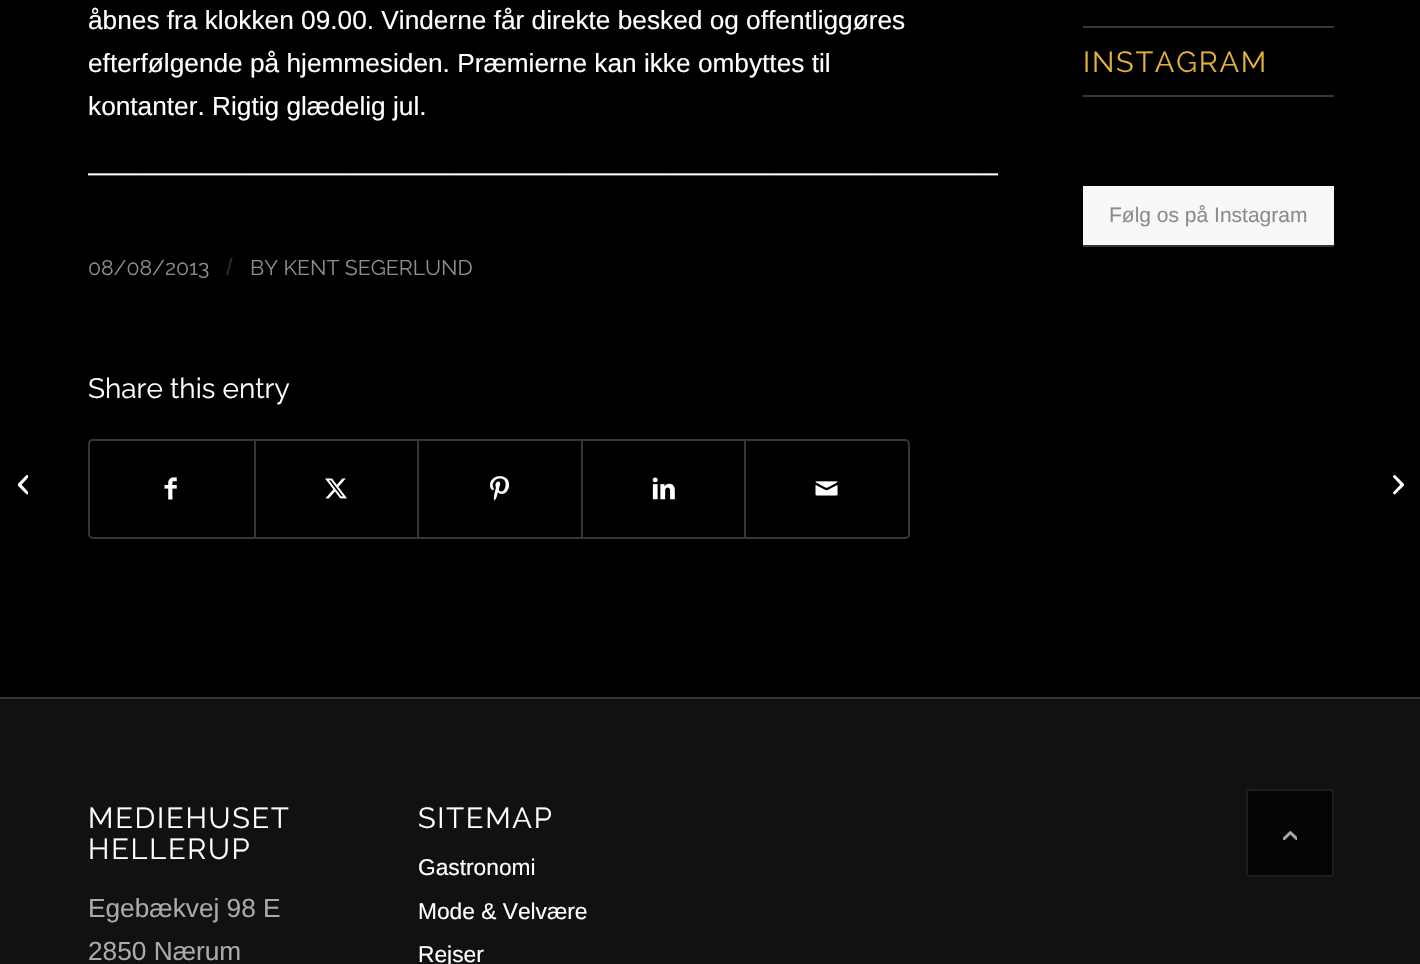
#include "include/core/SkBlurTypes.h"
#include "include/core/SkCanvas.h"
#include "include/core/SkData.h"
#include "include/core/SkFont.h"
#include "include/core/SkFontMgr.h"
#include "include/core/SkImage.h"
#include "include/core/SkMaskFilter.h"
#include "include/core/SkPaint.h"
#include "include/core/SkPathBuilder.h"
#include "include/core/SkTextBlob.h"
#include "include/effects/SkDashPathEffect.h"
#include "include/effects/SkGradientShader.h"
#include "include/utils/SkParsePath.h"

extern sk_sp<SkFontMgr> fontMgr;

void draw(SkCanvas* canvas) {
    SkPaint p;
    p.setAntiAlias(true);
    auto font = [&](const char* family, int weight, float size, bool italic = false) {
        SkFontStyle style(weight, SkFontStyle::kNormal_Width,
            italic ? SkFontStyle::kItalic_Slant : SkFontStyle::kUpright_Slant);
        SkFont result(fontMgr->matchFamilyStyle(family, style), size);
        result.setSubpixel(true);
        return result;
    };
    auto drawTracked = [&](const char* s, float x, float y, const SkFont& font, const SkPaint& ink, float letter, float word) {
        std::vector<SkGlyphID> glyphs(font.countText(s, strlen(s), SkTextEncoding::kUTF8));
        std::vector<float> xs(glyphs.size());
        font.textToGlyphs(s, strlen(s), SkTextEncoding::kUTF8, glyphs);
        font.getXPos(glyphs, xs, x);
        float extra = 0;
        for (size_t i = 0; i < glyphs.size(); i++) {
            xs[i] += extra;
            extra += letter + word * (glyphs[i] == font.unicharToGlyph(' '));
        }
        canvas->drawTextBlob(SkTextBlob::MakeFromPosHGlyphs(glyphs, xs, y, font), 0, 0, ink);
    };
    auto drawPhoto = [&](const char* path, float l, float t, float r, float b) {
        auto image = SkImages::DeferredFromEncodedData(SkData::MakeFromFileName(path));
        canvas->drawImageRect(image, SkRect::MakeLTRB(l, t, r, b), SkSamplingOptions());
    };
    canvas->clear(0xFF000000);
    drawPhoto("media/1.png", 18, 475, 28, 495);
    auto font1 = font("Liberation Sans", 400, 26.25f);
    p.setColor(0xFFFFFFFF);
    {
        const struct { const char* s; float x, y; } items[] = {
            {"åbnes fra klokken 09.00. Vinderne får direkte besked og offentliggøres", 88, 29},
            {"efterfølgende på hjemmesiden. Præmierne kan ikke ombyttes til", 88, 72},
            {"kontanter. Rigtig glædelig jul.", 88, 115},
        };
        for (auto [s, x, y] : items) {
            canvas->drawString(s, x, y, font1, p);
        }
    }
    canvas->save();
    canvas->clipRect(SkRect::MakeLTRB(88, 0, 998, 609));
    canvas->drawString("———————————————————————————————————", 88, 181, font1, p);
    canvas->restore();
    auto font2 = font("Raleway", 100, 21.25f);
    p.setColor(0xFF8C8C8C);
    canvas->drawString("08/08/2013", 88, 275, font2, p);
    auto font3 = font("Liberation Sans", 400, 24);
    p.setColor(0xFF2A2A2A);
    canvas->drawString("/", 226, 275, font3, p);
    p.setColor(0xFF8C8C8C);
    canvas->drawString("BY KENT SEGERLUND", 250, 275, font2, p);
    auto font4 = font("Raleway", 100, 28);
    p.setColor(0xFFFFFFFF);
    canvas->drawString("Share this entry", 88, 398, font4, p);
    p.setStyle(SkPaint::kStroke_Style);
    p.setStrokeWidth(2);
    p.setColor(0xFF363636);
    canvas->drawRoundRect(SkRect::MakeLTRB(89, 440, 909, 538), 4, 4, p);
    drawPhoto("media/2.png", 164, 477, 177, 500);
    p.setStyle(SkPaint::kFill_Style);
    canvas->drawRect(SkRect::MakeLTRB(254, 441, 256, 537), p);
    drawPhoto("media/3.png", 325, 478, 347, 499);
    canvas->drawRect(SkRect::MakeLTRB(417, 441, 419, 537), p);
    drawPhoto("media/4.png", 490, 476, 509, 501);
    canvas->drawRect(SkRect::MakeLTRB(581, 441, 583, 537), p);
    drawPhoto("media/5.png", 652, 477, 675, 500);
    canvas->drawRect(SkRect::MakeLTRB(744, 441, 746, 537), p);
    drawPhoto("media/6.png", 815, 481, 838, 496);
    canvas->drawRect(SkRect::MakeLTRB(1083, 26, 1334, 28), p);
    canvas->drawRect(SkRect::MakeLTRB(1083, 95, 1334, 97), p);
    auto font5 = font("Raleway", 100, 29);
    p.setColor(0xFFE0B13A);
    drawTracked("INSTAGRAM", 1083, 72, font5, p, 1.75f, 0);
    p.setColor(0xFFF8F8F8);
    canvas->drawRect(SkRect::MakeLTRB(1083, 186, 1334, 245), p);
    p.setColor(0xFF363636);
    canvas->drawRect(SkRect::MakeLTRB(1083, 245, 1334, 247), p);
    auto font6 = font("Liberation Sans", 400, 21);
    p.setColor(0xFF8C8C8C);
    canvas->drawString("Følg os på Instagram", 1109, 222, font6, p);
    p.setColor(0xFF111111);
    canvas->drawRect(SkRect::MakeLTRB(0, 699, 1420, 964), p);
    p.setColor(0xFF363636);
    canvas->drawRect(SkRect::MakeLTRB(0, 697, 1420, 699), p);
    p.setColor(0xFFFFFFFF);
    drawTracked("MEDIEHUSET", 88, 828, font5, p, 1.75f, 0);
    drawTracked("HELLERUP", 88, 859, font5, p, 1.75f, 0);
    p.setColor(0xFFAAAAAA);
    canvas->drawString("Egebækvej 98 E", 88, 917, font1, p);
    canvas->drawString("2850 Nærum", 88, 960, font1, p);
    p.setColor(0xFFFFFFFF);
    drawTracked("SITEMAP", 418, 828, font5, p, 1.75f, 0);
    auto font7 = font("Liberation Sans", 400, 22.75f);
    {
        const struct { const char* s; float x, y; } items[] = {
            {"Gastronomi", 418, 875},
            {"Mode & Velvære", 418, 919},
            {"Rejser", 418, 962},
        };
        for (auto [s, x, y] : items) {
            canvas->drawString(s, x, y, font7, p);
        }
    }
    drawPhoto("media/7.png", 1393, 475, 1404, 495);
    p.setColor(0xFF050505);
    canvas->drawRoundRect(SkRect::MakeLTRB(1247, 790, 1333, 876), 3, 3, p);
    p.setStyle(SkPaint::kStroke_Style);
    p.setColor(0xFF1D1D1D);
    canvas->drawRoundRect(SkRect::MakeLTRB(1247, 790, 1333, 876), 3, 3, p);
    drawPhoto("media/8.png", 1283, 831, 1297, 841);
}
